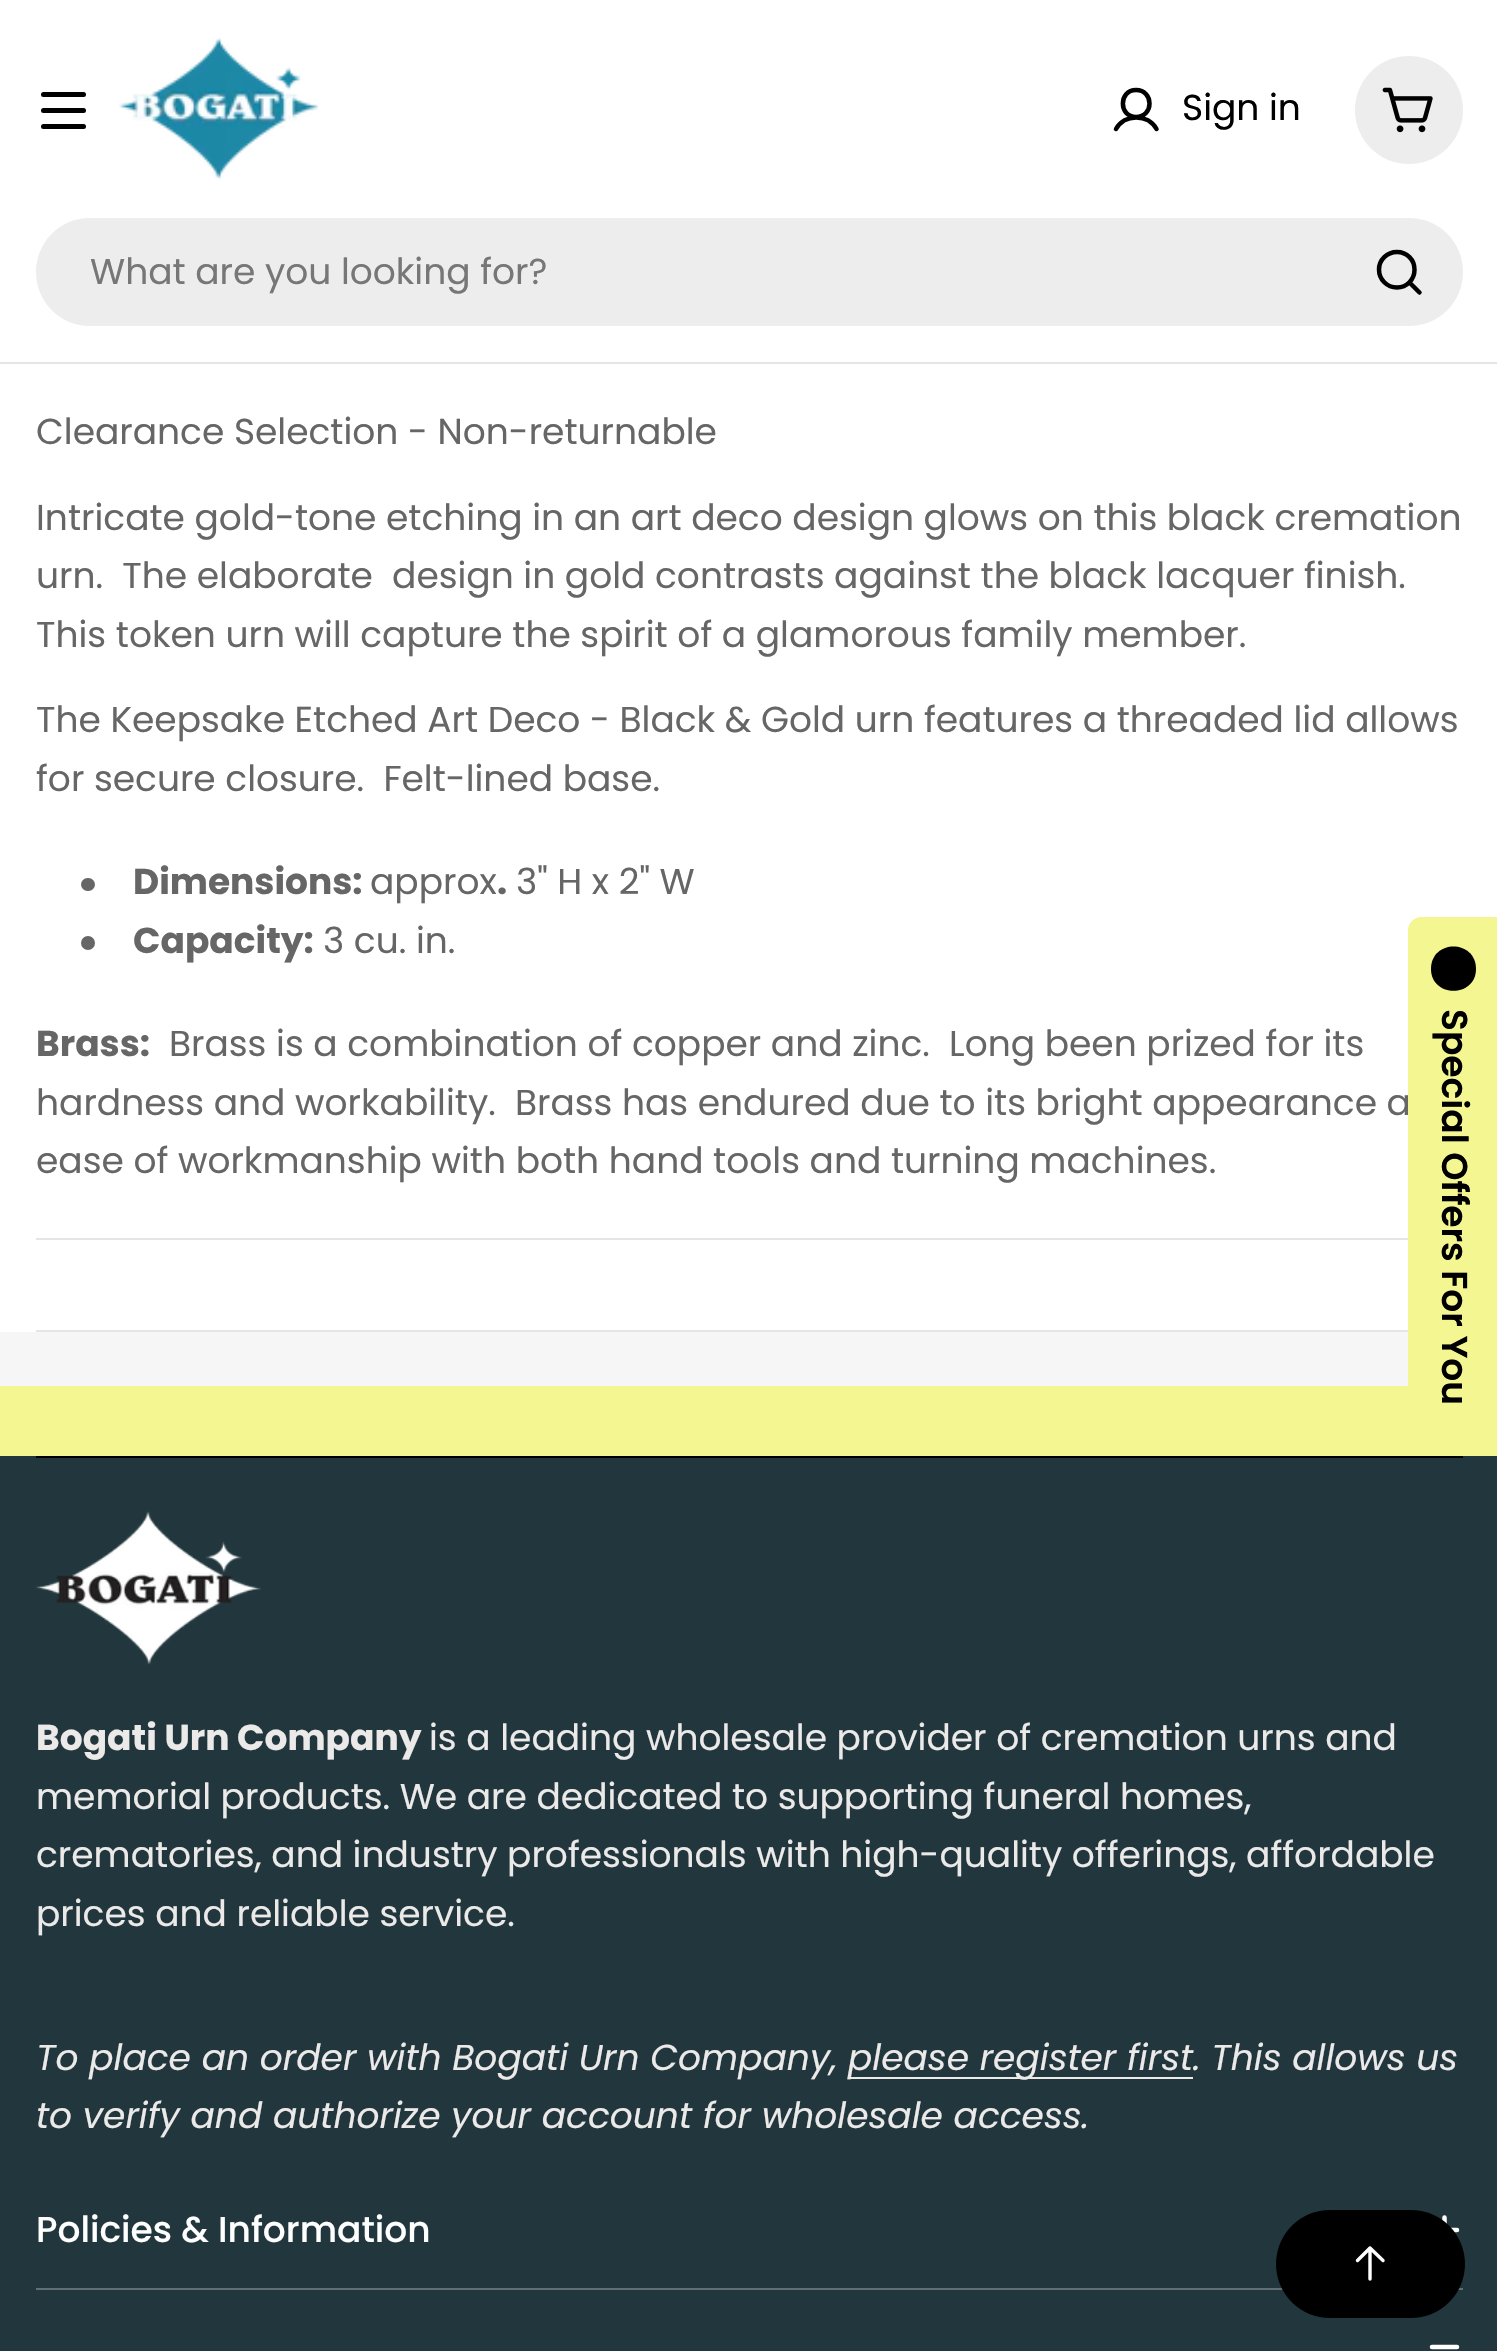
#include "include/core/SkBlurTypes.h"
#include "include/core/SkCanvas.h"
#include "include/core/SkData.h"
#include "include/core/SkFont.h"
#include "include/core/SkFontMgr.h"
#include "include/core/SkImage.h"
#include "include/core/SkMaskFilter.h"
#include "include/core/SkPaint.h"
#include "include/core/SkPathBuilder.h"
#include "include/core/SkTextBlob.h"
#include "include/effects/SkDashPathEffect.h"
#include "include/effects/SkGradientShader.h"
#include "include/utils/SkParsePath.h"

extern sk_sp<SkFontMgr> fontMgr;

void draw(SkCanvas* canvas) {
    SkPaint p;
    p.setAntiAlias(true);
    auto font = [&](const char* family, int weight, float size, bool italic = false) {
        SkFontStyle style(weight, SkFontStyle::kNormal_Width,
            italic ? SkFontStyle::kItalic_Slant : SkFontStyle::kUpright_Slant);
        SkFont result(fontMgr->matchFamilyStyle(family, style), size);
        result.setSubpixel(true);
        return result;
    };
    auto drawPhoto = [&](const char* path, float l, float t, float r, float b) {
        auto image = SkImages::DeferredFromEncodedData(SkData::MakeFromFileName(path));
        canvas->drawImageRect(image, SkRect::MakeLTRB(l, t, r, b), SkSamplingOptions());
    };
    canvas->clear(0xFFFFFFFF);
    p.setColor(0xFF000000);
    canvas->drawRoundRect(SkRect::MakeLTRB(41, 108, 86, 113), 2.5f, 2.5f, p);
    canvas->drawRoundRect(SkRect::MakeLTRB(41, 92, 86, 97), 2.5f, 2.5f, p);
    canvas->drawRoundRect(SkRect::MakeLTRB(41, 124, 86, 129), 2.5f, 2.5f, p);
    drawPhoto("media/1.png", 119, 37, 319, 180);
    p.setStyle(SkPaint::kStroke_Style);
    p.setStrokeWidth(4.5f);
    p.setStrokeCap(SkPaint::kRound_Cap);
    p.setStrokeJoin(SkPaint::kRound_Join);
    canvas->drawPath(SkPathBuilder().moveTo(1136, 117).cubicTo(1154, 117, 1154, 90, 1136, 90).cubicTo(1118.5f, 90, 1118.5f, 117, 1136, 117).close().moveTo(1116, 129).cubicTo(1124.5f, 113.5f, 1148, 113.5f, 1156.5f, 129).detach(), p);
    auto font1 = font("Poppins", 400, 36);
    p.setStyle(SkPaint::kFill_Style);
    canvas->drawString("Sign in", 1182, 120, font1, p);
    p.setColor(0xFFEDEDED);
    canvas->drawCircle(1409, 110, 54, p);
    drawPhoto("media/2.png", 1382, 87, 1433, 133);
    canvas->drawRoundRect(SkRect::MakeLTRB(36, 218, 1463, 326), 54, 54, p);
    p.setColor(0xFF777777);
    canvas->drawString("What are you looking for?", 90, 284, font1, p);
    p.setStyle(SkPaint::kStroke_Style);
    p.setColor(0xFF000000);
    canvas->drawPath(SkPathBuilder().moveTo(1397, 287.5f).cubicTo(1407, 287.5f, 1414.5f, 279.5f, 1414.5f, 269.5f).cubicTo(1414.5f, 260, 1407, 252, 1397, 252).cubicTo(1387, 252, 1379, 260, 1379, 269.5f).cubicTo(1379, 279.5f, 1387, 287.5f, 1397, 287.5f).close().moveTo(1409.5f, 282.5f).lineTo(1419.5f, 292.5f).detach(), p);
    p.setStyle(SkPaint::kFill_Style);
    p.setColor(0xFFE5E5E5);
    canvas->drawRect(SkRect::MakeLTRB(0, 362, 1497, 364), p);
    p.setColor(0xFF666666);
    {
        const struct { const char* s; float x, y; } items[] = {
            {"Clearance Selection - Non-returnable", 36, 444},
            {"Intricate gold-tone etching in an art deco design glows on this black cremation", 36, 530},
            {"urn.  The elaborate  design in gold contrasts against the black lacquer finish.", 36, 588},
            {"This token urn will capture the spirit of a glamorous family member.", 36, 647},
            {"The Keepsake Etched Art Deco - Black & Gold urn features a threaded lid allows", 36, 732},
            {"for secure closure.  Felt-lined base.", 36, 791},
        };
        for (auto [s, x, y] : items) {
            canvas->drawString(s, x, y, font1, p);
        }
    }
    canvas->drawRoundRect(SkRect::MakeLTRB(81, 878, 95, 891), 6.5f, 6.5f, p);
    auto font2 = font("Poppins", 700, 36);
    canvas->drawString("Dimensions:", 133, 894, font2, p);
    canvas->drawString("approx", 370, 894, font1, p);
    canvas->drawString(".", 497, 894, font2, p);
    canvas->drawString("3\" H x 2\" W", 516, 894, font1, p);
    canvas->drawCircle(88, 943, 7, p);
    canvas->drawString("Capacity:", 133, 953, font2, p);
    canvas->drawString("3 cu. in.", 323, 953, font1, p);
    canvas->drawString("Brass:", 36, 1056, font2, p);
    {
        const struct { const char* s; float x, y; } items[] = {
            {"Brass is a combination of copper and zinc.  Long been prized for its", 169, 1056},
            {"hardness and workability.  Brass has endured due to its bright appearance a", 36, 1115},
            {"ease of workmanship with both hand tools and turning machines.", 36, 1173},
        };
        for (auto [s, x, y] : items) {
            canvas->drawString(s, x, y, font1, p);
        }
    }
    {
        const struct { float l, t, r, b; SkColor color; } items[] = {
            {36, 1238, 1408, 1240, 0xFFE5E5E5},
            {36, 1330, 1408, 1332, 0xFFE5E5E5},
            {0, 1332, 1408, 1386, 0xFFF6F6F6},
            {0, 1386, 1497, 1456, 0xFFF4F691},
            {0, 1456, 1497, 2351, 0xFF21373D},
            {36, 1456, 1463, 1458, 0xFF000000},
        };
        for (auto [l, t, r, b, color] : items) {
            p.setColor(color);
            canvas->drawRect(SkRect::MakeLTRB(l, t, r, b), p);
        }
    }
    drawPhoto("media/3.png", 36, 1511, 261, 1665);
    p.setColor(0xFFECE9E9);
    canvas->drawString("Bogati Urn Company", 36, 1750, font2, p);
    {
        const struct { const char* s; float x, y; } items[] = {
            {"is a leading wholesale provider of cremation urns and", 429, 1750},
            {"memorial products. We are dedicated to supporting funeral homes,", 36, 1809},
            {"crematories, and industry professionals with high-quality offerings, affordable", 36, 1867},
            {"prices and reliable service.", 36, 1926},
        };
        for (auto [s, x, y] : items) {
            canvas->drawString(s, x, y, font1, p);
        }
    }
    auto font3 = font("Poppins", 400, 36, true);
    canvas->drawString("To place an order with Bogati Urn Company,", 36, 2070, font3, p);
    canvas->drawRect(SkRect::MakeLTRB(848, 2077, 1193, 2079), p);
    canvas->drawString("please register first. This allows us", 848, 2070, font3, p);
    canvas->drawString("to verify and authorize your account for wholesale access.", 36, 2128, font3, p);
    auto font4 = font("Poppins", 500, 36);
    p.setColor(0xFFFFFFFF);
    canvas->drawString("Policies & Information", 36, 2242, font4, p);
    p.setStyle(SkPaint::kStroke_Style);
    canvas->drawPath(SkPathBuilder().moveTo(1432, 2230).lineTo(1457, 2230).moveTo(1444.5f, 2217.5f).lineTo(1444.5f, 2242).detach(), p);
    p.setStyle(SkPaint::kFill_Style);
    p.setColor(0xFF5F6F74);
    canvas->drawRect(SkRect::MakeLTRB(36, 2288, 1463, 2290), p);
    p.setStyle(SkPaint::kStroke_Style);
    p.setColor(0xFFFFFFFF);
    canvas->drawPath(SkPathBuilder().moveTo(1432, 2347).lineTo(1457, 2347).moveTo(1432, 2347).lineTo(1457, 2347).detach(), p);
    p.setStyle(SkPaint::kFill_Style);
    p.setColor(0xFFF4F691);
    canvas->drawPath(SkPathBuilder().moveTo(1408, 1421).lineTo(1408, 930).cubicTo(1408, 923, 1415, 917, 1422, 917).lineTo(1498, 917).lineTo(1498, 1434).lineTo(1422, 1434).cubicTo(1415, 1434, 1408, 1428, 1408, 1421).close().detach(), p);
    p.setStyle(SkPaint::kStroke_Style);
    p.setStrokeWidth(2.2f);
    p.setStrokeCap(SkPaint::kButt_Cap);
    p.setStrokeJoin(SkPaint::kMiter_Join);
    canvas->drawPath(SkPathBuilder().moveTo(1409.5f, 1421).lineTo(1409.5f, 930.5f).cubicTo(1409.5f, 923.5f, 1415, 918, 1422, 918).lineTo(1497.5f, 918).lineTo(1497.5f, 1433.5f).lineTo(1422, 1433.5f).cubicTo(1415, 1433.5f, 1409.5f, 1428, 1409.5f, 1421).close().detach(), p);
    p.setStyle(SkPaint::kFill_Style);
    p.setColor(0xFF000000);
    canvas->drawPath(SkPathBuilder().moveTo(1476, 969).cubicTo(1476, 998, 1431, 998, 1431, 969).cubicTo(1431, 939, 1476, 939, 1476, 969).close().detach(), p);
    auto font5 = font("Poppins", 600, 36);
    canvas->save();
    canvas->rotate(90, 1442, 1009);
    canvas->drawString("Special Offers For You", 1442, 1009, font5, p);
    canvas->restore();
    canvas->drawRoundRect(SkRect::MakeLTRB(1276, 2210, 1465, 2318), 54, 54, p);
    p.setStyle(SkPaint::kStroke_Style);
    p.setStrokeWidth(3.4f);
    p.setStrokeCap(SkPaint::kRound_Cap);
    p.setStrokeJoin(SkPaint::kRound_Join);
    p.setColor(0xFFFFFFFF);
    canvas->drawPath(SkPathBuilder().moveTo(1370, 2279).lineTo(1370, 2248).moveTo(1357.5f, 2260.5f).lineTo(1370, 2248).lineTo(1383, 2260.5f).detach(), p);
}
